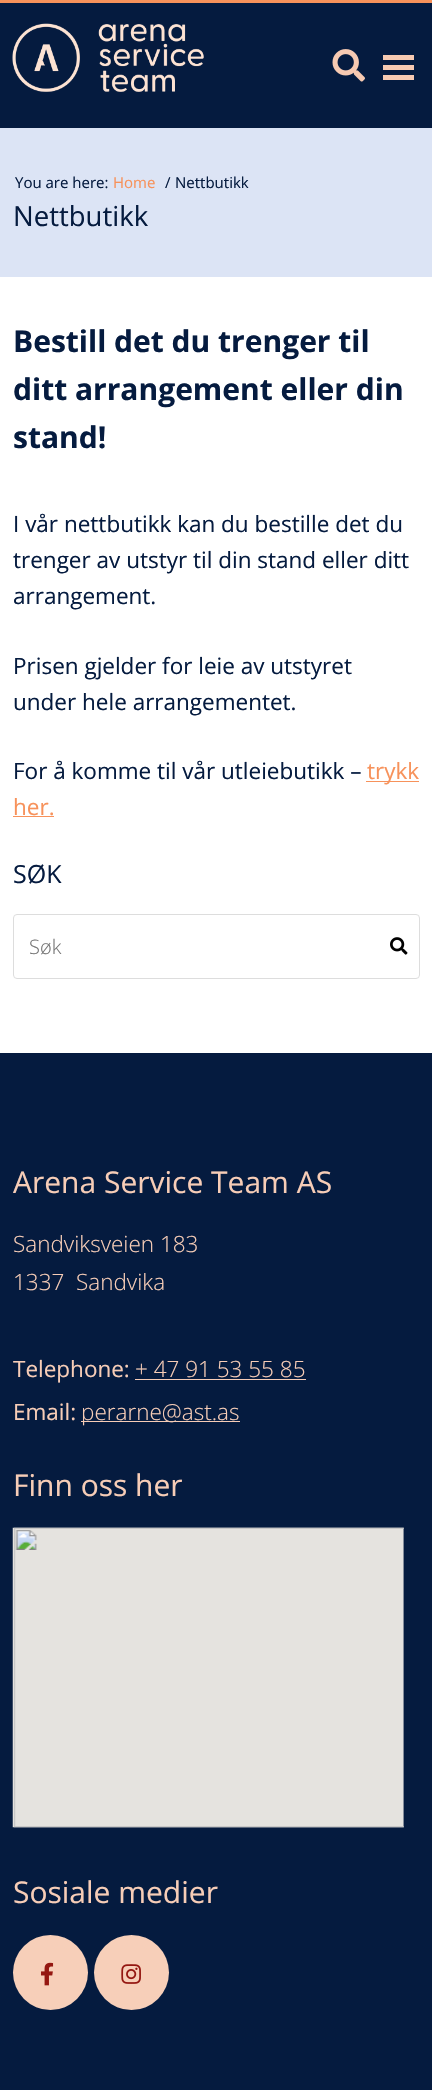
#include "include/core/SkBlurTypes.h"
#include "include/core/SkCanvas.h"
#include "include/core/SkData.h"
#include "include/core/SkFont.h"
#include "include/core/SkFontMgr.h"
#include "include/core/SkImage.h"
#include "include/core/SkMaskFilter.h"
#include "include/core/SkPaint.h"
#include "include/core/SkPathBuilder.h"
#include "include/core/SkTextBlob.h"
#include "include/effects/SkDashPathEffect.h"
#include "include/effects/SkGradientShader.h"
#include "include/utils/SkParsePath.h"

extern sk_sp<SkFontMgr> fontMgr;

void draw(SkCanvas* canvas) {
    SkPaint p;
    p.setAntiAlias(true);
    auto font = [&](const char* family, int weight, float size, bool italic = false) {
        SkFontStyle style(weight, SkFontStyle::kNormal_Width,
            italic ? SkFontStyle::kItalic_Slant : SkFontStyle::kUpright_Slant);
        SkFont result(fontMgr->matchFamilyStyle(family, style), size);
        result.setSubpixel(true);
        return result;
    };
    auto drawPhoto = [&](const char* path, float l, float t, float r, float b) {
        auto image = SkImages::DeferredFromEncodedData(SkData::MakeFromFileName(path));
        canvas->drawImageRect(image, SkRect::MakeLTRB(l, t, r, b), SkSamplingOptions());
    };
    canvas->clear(0xFFFFFFFF);
    p.setColor(0xFF051B3F);
    canvas->drawRect(SkRect::MakeLTRB(0, 3, 432, 128), p);
    p.setColor(0xFFF7925B);
    canvas->drawRect(SkRect::MakeLTRB(0, 0, 432, 3), p);
    drawPhoto("media/1.png", 12, 23, 204, 92);
    drawPhoto("media/2.png", 332, 49, 365, 82);
    {
        const struct { float l, t, r, b; SkColor color; } items[] = {
            {383, 55, 414, 60, 0xFFF7CAB2},
            {383, 65, 414, 70, 0xFFF7CAB2},
            {383, 75, 414, 80, 0xFFF7CAB2},
            {0, 128, 432, 277, 0xFFDCE4F5},
        };
        for (auto [l, t, r, b, color] : items) {
            p.setColor(color);
            canvas->drawRect(SkRect::MakeLTRB(l, t, r, b), p);
        }
    }
    auto font1 = font("Open Sans", 400, 15);
    p.setColor(0xFF051B3F);
    canvas->drawString("You are here:", 15, 188, font1, p);
    p.setColor(0xFFF7925B);
    canvas->drawString("Home", 113, 188, font1, p);
    p.setColor(0xFF051B3F);
    canvas->drawString("/", 165, 188, font1, p);
    canvas->drawString("Nettbutikk", 175, 188, font1, p);
    auto font2 = font("Open Sans", 400, 27.5f);
    canvas->drawString("Nettbutikk", 13, 226, font2, p);
    auto font3 = font("Open Sans", 700, 30);
    {
        const struct { const char* s; float x, y; } items[] = {
            {"Bestill det du trenger til", 13, 352},
            {"ditt arrangement eller din", 13, 400},
            {"stand!", 13, 448},
        };
        for (auto [s, x, y] : items) {
            canvas->drawString(s, x, y, font3, p);
        }
    }
    auto font4 = font("Open Sans", 400, 22.5f);
    {
        const struct { const char* s; float x, y; } items[] = {
            {"I vår nettbutikk kan du bestille det du", 13, 532},
            {"trenger av utstyr til din stand eller ditt", 13, 568},
            {"arrangement.", 13, 604},
            {"Prisen gjelder for leie av utstyret", 13, 674},
            {"under hele arrangementet.", 13, 710},
            {"For å komme til vår utleiebutikk –", 13, 779},
        };
        for (auto [s, x, y] : items) {
            canvas->drawString(s, x, y, font4, p);
        }
    }
    p.setColor(0xFFF7925B);
    canvas->drawRect(SkRect::MakeLTRB(366, 781, 419, 782), p);
    canvas->drawString("trykk", 367, 779, font4, p);
    canvas->drawString("her.", 13, 815, font4, p);
    canvas->drawRect(SkRect::MakeLTRB(13, 816, 54, 817), p);
    auto font5 = font("Open Sans", 400, 25);
    p.setColor(0xFF051B3F);
    canvas->drawString("SØK", 13, 883, font5, p);
    p.setStyle(SkPaint::kStroke_Style);
    p.setStrokeWidth(1);
    p.setColor(0xFFDDDDDD);
    canvas->drawRoundRect(SkRect::MakeLTRB(13.5f, 914.5f, 419.5f, 978.5f), 3.5f, 3.5f, p);
    auto font6 = font("Open Sans", 300, 20);
    p.setStyle(SkPaint::kFill_Style);
    p.setColor(0xFF757575);
    canvas->drawString("Søk", 29, 954, font6, p);
    drawPhoto("media/3.png", 390, 937, 408, 955);
    p.setColor(0xFF051B3F);
    canvas->drawRect(SkRect::MakeLTRB(0, 1053, 432, 2090), p);
    auto font7 = font("Open Sans", 400, 30);
    p.setColor(0xFFF7CDB7);
    canvas->drawString("Arena Service Team AS", 13, 1193, font7, p);
    auto font8 = font("Open Sans", 300, 22.5f);
    {
        const struct { const char* s; float x, y; } items[] = {
            {"Sandviksveien 183", 13, 1252},
            {"1337", 13, 1290},
            {"Sandvika", 76, 1290},
        };
        for (auto [s, x, y] : items) {
            canvas->drawString(s, x, y, font8, p);
        }
    }
    canvas->drawString("Telephone:", 13, 1377, font4, p);
    canvas->drawString("+ 47 91 53 55 85", 135, 1377, font8, p);
    canvas->drawRect(SkRect::MakeLTRB(135, 1379, 306, 1380), p);
    canvas->drawString("Email:", 13, 1420, font4, p);
    canvas->drawRect(SkRect::MakeLTRB(81, 1421, 240, 1422), p);
    canvas->drawString("perarne@ast.as", 81, 1420, font8, p);
    canvas->drawString("Finn oss her", 13, 1496, font7, p);
    drawPhoto("media/4.png", 12, 1527, 404, 1828);
    canvas->drawString("Sosiale medier", 13, 1903, font7, p);
    p.setColor(0xFFF7CFB9);
    canvas->drawCircle(50.5f, 1972.5f, 37.5f, p);
    drawPhoto("media/5.png", 41, 1962, 54, 1986);
    canvas->drawCircle(131.5f, 1972.5f, 37.5f, p);
    drawPhoto("media/6.png", 121, 1964, 141, 1984);
}
